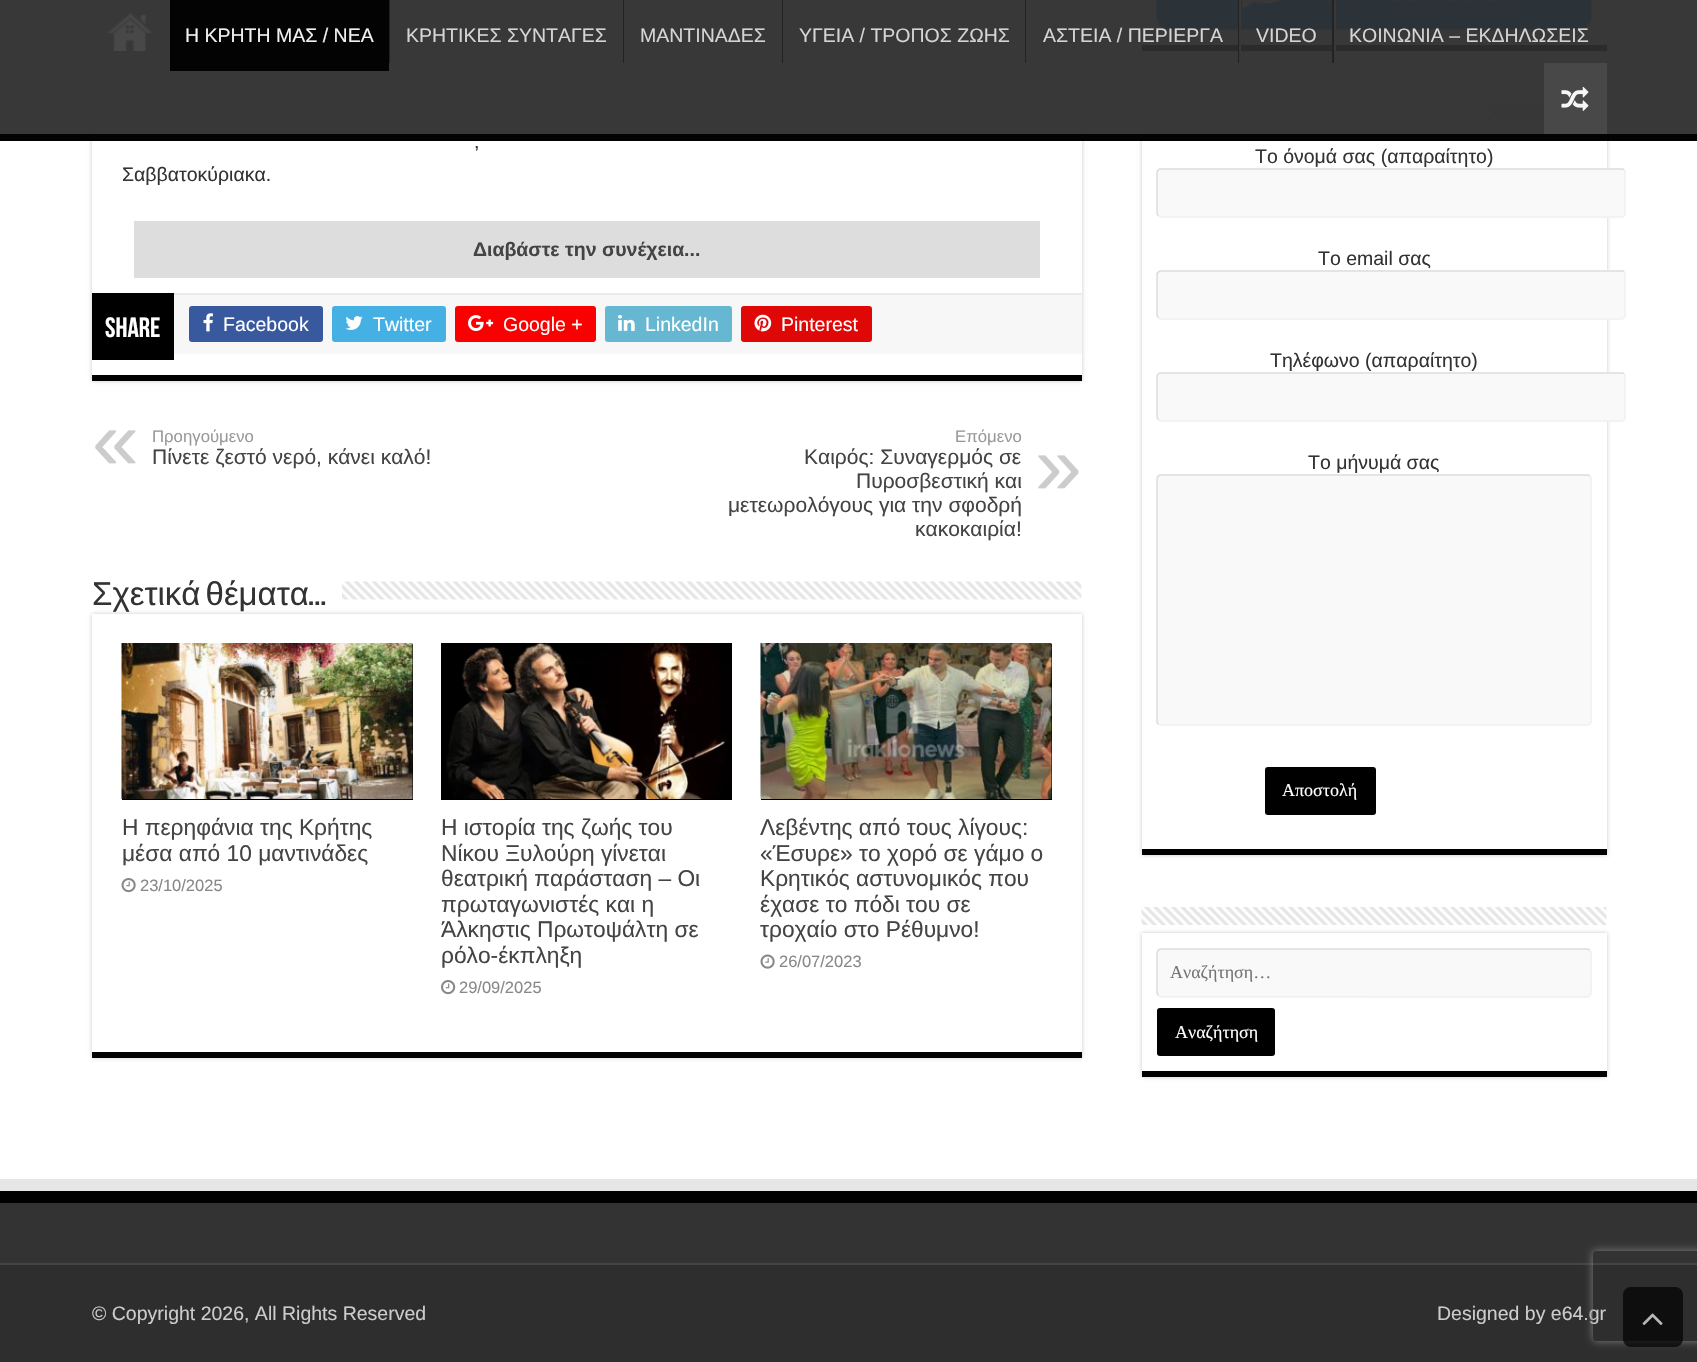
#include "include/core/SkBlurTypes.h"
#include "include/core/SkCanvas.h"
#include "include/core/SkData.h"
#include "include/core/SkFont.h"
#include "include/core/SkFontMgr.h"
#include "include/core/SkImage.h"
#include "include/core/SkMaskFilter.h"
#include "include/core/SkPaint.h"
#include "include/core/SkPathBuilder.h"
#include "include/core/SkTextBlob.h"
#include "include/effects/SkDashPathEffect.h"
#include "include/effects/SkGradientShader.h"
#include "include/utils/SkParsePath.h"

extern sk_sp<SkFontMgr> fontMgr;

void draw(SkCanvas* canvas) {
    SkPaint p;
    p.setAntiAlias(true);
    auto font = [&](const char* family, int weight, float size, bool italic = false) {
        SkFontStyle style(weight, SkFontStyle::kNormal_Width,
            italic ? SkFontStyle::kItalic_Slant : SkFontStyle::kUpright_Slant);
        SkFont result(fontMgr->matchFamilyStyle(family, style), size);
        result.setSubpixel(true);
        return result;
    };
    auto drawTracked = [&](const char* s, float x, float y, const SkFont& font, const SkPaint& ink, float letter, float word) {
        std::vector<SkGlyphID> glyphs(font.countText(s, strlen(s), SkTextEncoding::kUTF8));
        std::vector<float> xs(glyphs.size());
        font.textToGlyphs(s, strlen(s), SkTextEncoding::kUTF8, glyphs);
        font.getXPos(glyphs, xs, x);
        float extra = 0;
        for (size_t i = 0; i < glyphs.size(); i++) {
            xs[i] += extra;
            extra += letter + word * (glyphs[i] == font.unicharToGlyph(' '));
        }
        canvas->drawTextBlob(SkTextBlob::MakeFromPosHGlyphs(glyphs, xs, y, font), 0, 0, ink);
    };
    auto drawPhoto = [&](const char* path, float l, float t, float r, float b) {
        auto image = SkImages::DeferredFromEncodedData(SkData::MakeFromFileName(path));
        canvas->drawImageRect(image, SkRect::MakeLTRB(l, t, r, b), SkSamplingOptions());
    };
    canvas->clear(0xFFFFFFFF);
    p.setColor(0xFFCACACA);
    p.setMaskFilter(SkMaskFilter::MakeBlur(kNormal_SkBlurStyle, 2));
    canvas->drawRect(SkRect::MakeLTRB(92, -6, 1082, 381), p);
    p.setMaskFilter(nullptr);
    p.setColor(0xFFFFFFFF);
    canvas->drawRect(SkRect::MakeLTRB(92, 0, 1082, 375), p);
    p.setColor(0xFFCACACA);
    p.setMaskFilter(SkMaskFilter::MakeBlur(kNormal_SkBlurStyle, 2));
    canvas->drawRect(SkRect::MakeLTRB(1142, -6, 1607, 51), p);
    p.setMaskFilter(nullptr);
    p.setColor(0xFFFFFFFF);
    canvas->drawRect(SkRect::MakeLTRB(1142, 0, 1607, 45), p);
    p.setColor(0xFF000000);
    canvas->drawRect(SkRect::MakeLTRB(1142, 45, 1607, 51), p);
    drawPhoto("media/15.png", 1156, 0, 1592, 30);
    drawPhoto("media/16.png", 1488, 103, 1607, 121);
    p.setColor(0xFFCACACA);
    p.setMaskFilter(SkMaskFilter::MakeBlur(kNormal_SkBlurStyle, 2));
    canvas->drawRect(SkRect::MakeLTRB(1142, 131, 1607, 855), p);
    p.setMaskFilter(nullptr);
    {
        const struct { float l, t, r, b; SkColor color; } items[] = {
            {1142, 131, 1607, 849, 0xFFFFFFFF},
            {0, 0, 1697, 141, 0xF22D2D2D},
            {0, 134, 1697, 141, 0xF2000000},
        };
        for (auto [l, t, r, b, color] : items) {
            p.setColor(color);
            canvas->drawRect(SkRect::MakeLTRB(l, t, r, b), p);
        }
    }
    drawPhoto("media/1.png", 108, 13, 152, 51);
    canvas->drawRect(SkRect::MakeLTRB(170, 0, 389, 71), p);
    auto font1 = font("Liberation Sans", 400, 19.5f);
    p.setColor(0xFFF2F2F2);
    canvas->drawString("Η ΚΡΗΤΗ ΜΑΣ / ΝΕΑ", 185, 42, font1, p);
    p.setColor(0xF2222222);
    canvas->drawRect(SkRect::MakeLTRB(389, 0, 391, 63), p);
    p.setColor(0xF2383838);
    canvas->drawRect(SkRect::MakeLTRB(390, 0, 391, 63), p);
    p.setColor(0xFFD5D5D5);
    canvas->drawString("ΚΡΗΤΙΚΕΣ ΣΥΝΤΑΓΕΣ", 406, 42, font1, p);
    p.setColor(0xF2222222);
    canvas->drawRect(SkRect::MakeLTRB(623, 0, 625, 63), p);
    p.setColor(0xF2383838);
    canvas->drawRect(SkRect::MakeLTRB(624, 0, 625, 63), p);
    p.setColor(0xFFD5D5D5);
    canvas->drawString("ΜΑΝΤΙΝΑΔΕΣ", 640, 42, font1, p);
    p.setColor(0xF2222222);
    canvas->drawRect(SkRect::MakeLTRB(782, 0, 784, 63), p);
    p.setColor(0xF2383838);
    canvas->drawRect(SkRect::MakeLTRB(783, 0, 784, 63), p);
    p.setColor(0xFFD5D5D5);
    canvas->drawString("ΥΓΕΙΑ / ΤΡΟΠΟΣ ΖΩΗΣ", 799, 42, font1, p);
    p.setColor(0xF2222222);
    canvas->drawRect(SkRect::MakeLTRB(1025, 0, 1027, 63), p);
    p.setColor(0xF2383838);
    canvas->drawRect(SkRect::MakeLTRB(1026, 0, 1027, 63), p);
    p.setColor(0xFFD5D5D5);
    canvas->drawString("ΑΣΤΕΙΑ / ΠΕΡΙΕΡΓΑ", 1043, 42, font1, p);
    p.setColor(0xF2222222);
    canvas->drawRect(SkRect::MakeLTRB(1238, 0, 1240, 63), p);
    p.setColor(0xF2383838);
    canvas->drawRect(SkRect::MakeLTRB(1239, 0, 1241, 63), p);
    p.setColor(0xFFD5D5D5);
    canvas->drawString("VIDEO", 1256, 42, font1, p);
    p.setColor(0xF2222222);
    canvas->drawRect(SkRect::MakeLTRB(1332, 0, 1334, 63), p);
    p.setColor(0xF2383838);
    canvas->drawRect(SkRect::MakeLTRB(1334, 0, 1336, 51), p);
    p.setColor(0xFFD5D5D5);
    canvas->drawString("ΚΟΙΝΩΝΙΑ – ΕΚΔΗΛΩΣΕΙΣ", 1349, 42, font1, p);
    p.setColor(0xF2494949);
    canvas->drawRect(SkRect::MakeLTRB(1544, 63, 1607, 134), p);
    drawPhoto("media/2.png", 1561, 86, 1589, 111);
    p.setColor(0xFF000000);
    canvas->drawRect(SkRect::MakeLTRB(92, 375, 1082, 381), p);
    p.setColor(0xFF333333);
    canvas->drawString(",", 474, 148, font1, p);
    canvas->drawString("Σαββατοκύριακα.", 122, 181, font1, p);
    p.setColor(0xFFDDDDDD);
    canvas->drawRect(SkRect::MakeLTRB(134, 221, 1040, 278), p);
    auto font2 = font("Liberation Sans", 700, 19.5f);
    p.setColor(0xFF444444);
    canvas->drawString("Διαβάστε την συνέχεια...", 473, 256, font2, p);
    {
        const struct { float l, t, r, b; SkColor color; } items[] = {
            {174, 295, 1082, 354, 0xFFF7F7F7},
            {174, 293, 1082, 295, 0xFFEAEAEA},
            {92, 293, 174, 360, 0xFF000000},
        };
        for (auto [l, t, r, b, color] : items) {
            p.setColor(color);
            canvas->drawRect(SkRect::MakeLTRB(l, t, r, b), p);
        }
    }
    auto font3 = font("Bebas Neue", 700, 28);
    p.setColor(0xFFFFFFFF);
    canvas->drawString("Share", 105, 337, font3, p);
    p.setColor(0xFF39599F);
    canvas->drawRoundRect(SkRect::MakeLTRB(189, 306, 323, 342), 3, 3, p);
    drawPhoto("media/3.png", 203, 313, 213, 332);
    p.setColor(0xFFFFFFFF);
    canvas->drawString("Facebook", 223, 331, font1, p);
    p.setColor(0xFF45B0E3);
    canvas->drawRoundRect(SkRect::MakeLTRB(332, 306, 446, 342), 3, 3, p);
    drawPhoto("media/4.png", 345, 316, 363, 330);
    p.setColor(0xFFFFFFFF);
    canvas->drawString("Twitter", 373, 331, font1, p);
    p.setColor(0xFFFA0101);
    canvas->drawRoundRect(SkRect::MakeLTRB(455, 306, 596, 342), 3, 3, p);
    drawPhoto("media/5.png", 468, 315, 494, 331);
    p.setColor(0xFFFFFFFF);
    canvas->drawString("Google +", 503, 331, font1, p);
    p.setColor(0xFF65B7D2);
    canvas->drawRoundRect(SkRect::MakeLTRB(605, 306, 732, 342), 3, 3, p);
    drawPhoto("media/6.png", 618, 314, 635, 331);
    p.setColor(0xFFFFFFFF);
    canvas->drawString("LinkedIn", 645, 331, font1, p);
    p.setColor(0xFFE00707);
    canvas->drawRoundRect(SkRect::MakeLTRB(741, 306, 872, 342), 3, 3, p);
    drawPhoto("media/7.png", 754, 314, 772, 332);
    p.setColor(0xFFFFFFFF);
    canvas->drawString("Pinterest", 781, 331, font1, p);
    auto font4 = font("Liberation Sans", 400, 84);
    p.setColor(0xFFCCCCCC);
    canvas->drawString("«", 92, 469, font4, p);
    auto font5 = font("Liberation Sans", 400, 16.75f);
    p.setColor(0xFF999999);
    canvas->drawString("Προηγούμενο", 152, 442, font5, p);
    auto font6 = font("Liberation Sans", 400, 21);
    p.setColor(0xFF444444);
    canvas->drawString("Πίνετε ζεστό νερό, κάνει καλό!", 152, 464, font6, p);
    p.setColor(0xFF999999);
    canvas->drawString("Επόμενο", 955, 442, font5, p);
    p.setColor(0xFF444444);
    canvas->drawString("Καιρός: Συναγερμός σε", 804, 464, font6, p);
    p.setColor(0xFFCCCCCC);
    canvas->drawString("»", 1035, 494, font4, p);
    p.setColor(0xFF444444);
    {
        const struct { const char* s; float x, y; } items[] = {
            {"Πυροσβεστική και", 856, 488},
            {"μετεωρολόγους για την σφοδρή", 728, 512},
            {"κακοκαιρία!", 915, 536},
        };
        for (auto [s, x, y] : items) {
            canvas->drawString(s, x, y, font6, p);
        }
    }
    p.setColor(0xFFCACACA);
    p.setMaskFilter(SkMaskFilter::MakeBlur(kNormal_SkBlurStyle, 2));
    canvas->drawRect(SkRect::MakeLTRB(92, 614, 1082, 1058), p);
    p.setMaskFilter(nullptr);
    auto font7 = font("Liberation Sans", 400, 33);
    p.setColor(0xFF333333);
    drawTracked("Σχετικά θέματα", 92, 605, font7, p, 0, -4);
    auto font8 = font("Bebas Neue", 700, 33);
    canvas->drawString("...", 308, 605, font8, p);
    drawPhoto("media/8.png", 342, 581, 1082, 600);
    {
        const struct { float l, t, r, b; SkColor color; } items[] = {
            {92, 614, 1082, 1052, 0xFFFFFFFF},
            {92, 1052, 1082, 1058, 0xFF000000},
            {122, 644, 413, 800, 0xFF000000},
        };
        for (auto [l, t, r, b, color] : items) {
            p.setColor(color);
            canvas->drawRect(SkRect::MakeLTRB(l, t, r, b), p);
        }
    }
    drawPhoto("media/9.png", 121, 643, 413, 799);
    auto font9 = font("Liberation Sans", 400, 22.75f);
    p.setColor(0xFF444444);
    canvas->drawString("Η περηφάνια της Κρήτης", 122, 835, font9, p);
    canvas->drawString("μέσα από 10 μαντινάδες", 122, 861, font9, p);
    drawPhoto("media/10.png", 121, 878, 136, 893);
    auto font10 = font("Liberation Sans", 400, 16.5f);
    p.setColor(0xFF888888);
    canvas->drawString("23/10/2025", 140, 891, font10, p);
    p.setColor(0xFF000000);
    canvas->drawRect(SkRect::MakeLTRB(441, 799, 732, 800), p);
    drawPhoto("media/11.png", 441, 643, 732, 799);
    p.setColor(0xFF444444);
    {
        const struct { const char* s; float x, y; } items[] = {
            {"Η ιστορία της ζωής του", 441, 835},
            {"Νίκου Ξυλούρη γίνεται", 441, 861},
            {"θεατρική παράσταση – Οι", 441, 886},
            {"πρωταγωνιστές και η", 441, 912},
            {"Άλκηστις Πρωτοψάλτη σε", 441, 937},
            {"ρόλο-έκπληξη", 441, 963},
        };
        for (auto [s, x, y] : items) {
            canvas->drawString(s, x, y, font9, p);
        }
    }
    drawPhoto("media/12.png", 441, 980, 456, 995);
    p.setColor(0xFF888888);
    canvas->drawString("29/09/2025", 459, 993, font10, p);
    p.setColor(0xFF000000);
    canvas->drawRect(SkRect::MakeLTRB(761, 644, 1052, 800), p);
    drawPhoto("media/13.png", 760, 643, 1052, 799);
    p.setColor(0xFF444444);
    {
        const struct { const char* s; float x, y; } items[] = {
            {"Λεβέντης από τους λίγους:", 760, 835},
            {"«Έσυρε» το χορό σε γάμο ο", 760, 861},
            {"Κρητικός αστυνομικός που", 760, 886},
            {"έχασε το πόδι του σε", 760, 912},
            {"τροχαίο στο Ρέθυμνο!", 760, 937},
        };
        for (auto [s, x, y] : items) {
            canvas->drawString(s, x, y, font9, p);
        }
    }
    drawPhoto("media/14.png", 760, 954, 775, 969);
    p.setColor(0xFF888888);
    canvas->drawString("26/07/2023", 779, 967, font10, p);
    p.setColor(0xFF000000);
    canvas->drawRect(SkRect::MakeLTRB(1142, 849, 1607, 855), p);
    p.setColor(0xFF333333);
    canvas->drawString("Το όνομά σας (απαραίτητο)", 1255, 163, font1, p);
    p.setColor(0xFFF9F9F9);
    canvas->drawRoundRect(SkRect::MakeLTRB(1157, 168, 1626, 218), 5, 5, p);
    p.setStyle(SkPaint::kStroke_Style);
    p.setStrokeWidth(1.5f);
    p.setColor(0xFFF1F1F1);
    canvas->drawPath(SkPathBuilder().moveTo(1624, 170).cubicTo(1625, 170.5f, 1625, 171.5f, 1625, 172.5f).lineTo(1625, 213).cubicTo(1625, 214, 1625, 215, 1624, 215.5f).cubicTo(1623.5f, 216.5f, 1622.5f, 217, 1621.5f, 217).lineTo(1161, 217).cubicTo(1160, 217, 1159, 216.5f, 1158.5f, 215.5f).detach(), p);
    p.setColor(0xFFDDDDDD);
    canvas->drawPath(SkPathBuilder().moveTo(1158.5f, 215.5f).cubicTo(1157.5f, 215, 1157, 214, 1157, 213).lineTo(1157, 172.5f).cubicTo(1157, 171.5f, 1157.5f, 170.5f, 1158.5f, 170).cubicTo(1159, 169, 1160, 169, 1161, 169).lineTo(1621.5f, 169).cubicTo(1622.5f, 169, 1623.5f, 169, 1624, 170).detach(), p);
    p.setStyle(SkPaint::kFill_Style);
    p.setColor(0xFF333333);
    canvas->drawString("Το email σας", 1318, 265, font1, p);
    p.setColor(0xFFF9F9F9);
    canvas->drawRoundRect(SkRect::MakeLTRB(1157, 270, 1626, 320), 5, 5, p);
    p.setStyle(SkPaint::kStroke_Style);
    p.setColor(0xFFF1F1F1);
    canvas->drawPath(SkPathBuilder().moveTo(1624, 272).cubicTo(1625, 272.5f, 1625, 273.5f, 1625, 274.5f).lineTo(1625, 315).cubicTo(1625, 316, 1625, 317, 1624, 317.5f).cubicTo(1623.5f, 318.5f, 1622.5f, 319, 1621.5f, 319).lineTo(1161, 319).cubicTo(1160, 319, 1159, 318.5f, 1158.5f, 317.5f).detach(), p);
    p.setColor(0xFFDDDDDD);
    canvas->drawPath(SkPathBuilder().moveTo(1158.5f, 317.5f).cubicTo(1157.5f, 317, 1157, 316, 1157, 315).lineTo(1157, 274.5f).cubicTo(1157, 273.5f, 1157.5f, 272.5f, 1158.5f, 272).cubicTo(1159, 271, 1160, 271, 1161, 271).lineTo(1621.5f, 271).cubicTo(1622.5f, 271, 1623.5f, 271, 1624, 272).detach(), p);
    p.setStyle(SkPaint::kFill_Style);
    p.setColor(0xFF333333);
    canvas->drawString("Τηλέφωνο (απαραίτητο)", 1270, 367, font1, p);
    p.setColor(0xFFF9F9F9);
    canvas->drawRoundRect(SkRect::MakeLTRB(1157, 372, 1626, 422), 5, 5, p);
    p.setStyle(SkPaint::kStroke_Style);
    p.setColor(0xFFF1F1F1);
    canvas->drawPath(SkPathBuilder().moveTo(1624, 374).cubicTo(1625, 374.5f, 1625, 375.5f, 1625, 376.5f).lineTo(1625, 417).cubicTo(1625, 418, 1625, 419, 1624, 419.5f).cubicTo(1623.5f, 420.5f, 1622.5f, 421, 1621.5f, 421).lineTo(1161, 421).cubicTo(1160, 421, 1159, 420.5f, 1158.5f, 419.5f).detach(), p);
    p.setColor(0xFFDDDDDD);
    canvas->drawPath(SkPathBuilder().moveTo(1158.5f, 419.5f).cubicTo(1157.5f, 419, 1157, 418, 1157, 417).lineTo(1157, 376.5f).cubicTo(1157, 375.5f, 1157.5f, 374.5f, 1158.5f, 374).cubicTo(1159, 373, 1160, 373, 1161, 373).lineTo(1621.5f, 373).cubicTo(1622.5f, 373, 1623.5f, 373, 1624, 374).detach(), p);
    p.setStyle(SkPaint::kFill_Style);
    p.setColor(0xFF333333);
    canvas->drawString("Το μήνυμά σας", 1308, 469, font1, p);
    p.setColor(0xFFF9F9F9);
    canvas->drawRoundRect(SkRect::MakeLTRB(1157, 474, 1592, 726), 5, 5, p);
    p.setStyle(SkPaint::kStroke_Style);
    p.setColor(0xFFF1F1F1);
    canvas->drawPath(SkPathBuilder().moveTo(1589.5f, 476).cubicTo(1590.5f, 476.5f, 1591, 477.5f, 1591, 478.5f).lineTo(1591, 721.5f).cubicTo(1591, 722.5f, 1590.5f, 723.5f, 1589.5f, 724).cubicTo(1589, 725, 1588, 725, 1587, 725).lineTo(1161, 725).cubicTo(1160, 725, 1159, 725, 1158.5f, 724).detach(), p);
    p.setColor(0xFFDDDDDD);
    canvas->drawPath(SkPathBuilder().moveTo(1158.5f, 724).cubicTo(1157.5f, 723.5f, 1157, 722.5f, 1157, 721.5f).lineTo(1157, 478.5f).cubicTo(1157, 477.5f, 1157.5f, 476.5f, 1158.5f, 476).cubicTo(1159, 475, 1160, 475, 1161, 475).lineTo(1587, 475).cubicTo(1588, 475, 1589, 475, 1589.5f, 476).detach(), p);
    p.setStyle(SkPaint::kFill_Style);
    p.setColor(0xFF000000);
    canvas->drawRoundRect(SkRect::MakeLTRB(1265, 767, 1376, 815), 3, 3, p);
    auto font11 = font("Liberation Serif", 400, 18);
    p.setColor(0xFFFFFFFF);
    canvas->drawString("Αποστολή", 1282, 796, font11, p);
    drawPhoto("media/17.png", 1141, 907, 1607, 925);
    p.setColor(0xFFCACACA);
    p.setMaskFilter(SkMaskFilter::MakeBlur(kNormal_SkBlurStyle, 2));
    canvas->drawRect(SkRect::MakeLTRB(1142, 933, 1607, 1077), p);
    p.setMaskFilter(nullptr);
    p.setColor(0xFFFFFFFF);
    canvas->drawRect(SkRect::MakeLTRB(1142, 933, 1607, 1071), p);
    p.setColor(0xFF000000);
    canvas->drawRect(SkRect::MakeLTRB(1142, 1071, 1607, 1077), p);
    p.setColor(0xFFF9F9F9);
    canvas->drawRoundRect(SkRect::MakeLTRB(1157, 948, 1592, 998), 5, 5, p);
    p.setStyle(SkPaint::kStroke_Style);
    p.setColor(0xFFF1F1F1);
    canvas->drawPath(SkPathBuilder().moveTo(1589.5f, 950).cubicTo(1592, 952, 1591, 957.5f, 1591, 959).lineTo(1591, 986).cubicTo(1591, 989, 1592, 996.5f, 1587, 997).lineTo(1160.5f, 996.5f).lineTo(1158.5f, 995.5f).detach(), p);
    p.setColor(0xFFDDDDDD);
    canvas->drawPath(SkPathBuilder().moveTo(1158.5f, 995.5f).cubicTo(1156, 993.5f, 1157, 988, 1157, 986).lineTo(1157, 959).cubicTo(1157, 956.5f, 1156, 949, 1161, 949).lineTo(1587.5f, 949).lineTo(1589.5f, 950).detach(), p);
    p.setStyle(SkPaint::kFill_Style);
    p.setColor(0xFF757575);
    canvas->drawString("Αναζήτηση…", 1170, 978, font11, p);
    p.setColor(0xFF000000);
    canvas->drawRoundRect(SkRect::MakeLTRB(1157, 1008, 1275, 1056), 3, 3, p);
    p.setColor(0xFFFFFFFF);
    canvas->drawString("Αναζήτηση", 1175, 1038, font11, p);
    {
        const struct { float l, t, r, b; SkColor color; } items[] = {
            {0, 1179, 1697, 1191, 0xFFE6E6E6},
            {0, 1203, 1697, 1263, 0xFF333333},
            {0, 1191, 1697, 1203, 0xFF000000},
            {0, 1265, 1697, 1362, 0xFF2E2E2E},
            {0, 1263, 1697, 1265, 0xFF444444},
        };
        for (auto [l, t, r, b, color] : items) {
            p.setColor(color);
            canvas->drawRect(SkRect::MakeLTRB(l, t, r, b), p);
        }
    }
    p.setColor(0xFFCCCCCC);
    canvas->drawString("© Copyright 2026, All Rights Reserved", 92, 1320, font1, p);
    canvas->drawString("Designed by e64.gr", 1437, 1320, font1, p);
    canvas->save();
    canvas->clipPath(SkPathBuilder(SkPathFillType::kEvenOdd).moveTo(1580, 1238).lineTo(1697, 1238).lineTo(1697, 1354).lineTo(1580, 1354).close().moveTo(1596, 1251).lineTo(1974, 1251).cubicTo(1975.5f, 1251, 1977, 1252.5f, 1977, 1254).lineTo(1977, 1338).cubicTo(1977, 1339.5f, 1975.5f, 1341, 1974, 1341).lineTo(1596, 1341).cubicTo(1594.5f, 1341, 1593, 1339.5f, 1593, 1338).lineTo(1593, 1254).cubicTo(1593, 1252.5f, 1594.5f, 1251, 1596, 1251).close().detach(), true);
    p.setColor(0xFF808080);
    p.setMaskFilter(SkMaskFilter::MakeBlur(kNormal_SkBlurStyle, 4));
    canvas->drawRoundRect(SkRect::MakeLTRB(1593, 1251, 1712, 1341), 3, 3, p);
    p.setMaskFilter(nullptr);
    canvas->restore();
    p.setColor(0xB3000000);
    canvas->drawRoundRect(SkRect::MakeLTRB(1623, 1287, 1683, 1347), 8, 8, p);
    drawPhoto("media/18.png", 1642, 1313, 1663, 1325);
}
